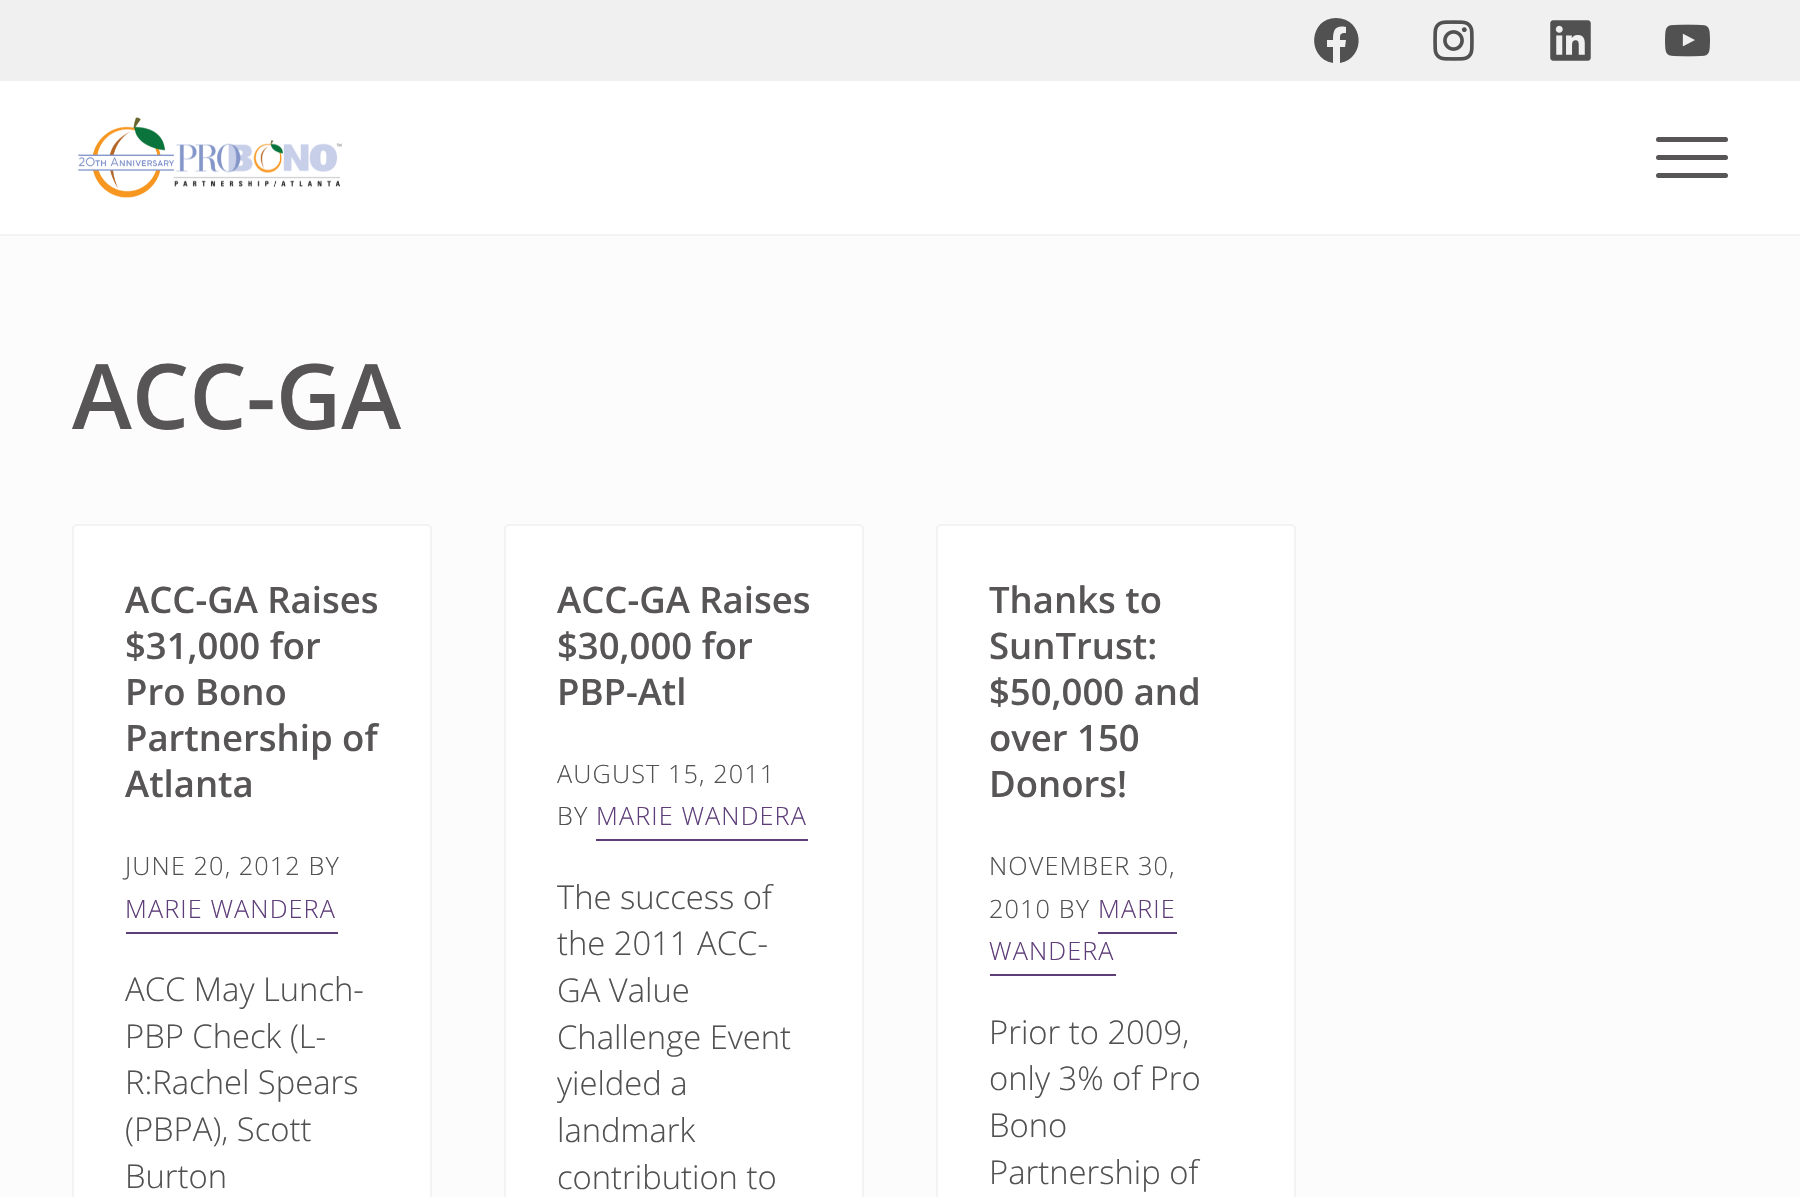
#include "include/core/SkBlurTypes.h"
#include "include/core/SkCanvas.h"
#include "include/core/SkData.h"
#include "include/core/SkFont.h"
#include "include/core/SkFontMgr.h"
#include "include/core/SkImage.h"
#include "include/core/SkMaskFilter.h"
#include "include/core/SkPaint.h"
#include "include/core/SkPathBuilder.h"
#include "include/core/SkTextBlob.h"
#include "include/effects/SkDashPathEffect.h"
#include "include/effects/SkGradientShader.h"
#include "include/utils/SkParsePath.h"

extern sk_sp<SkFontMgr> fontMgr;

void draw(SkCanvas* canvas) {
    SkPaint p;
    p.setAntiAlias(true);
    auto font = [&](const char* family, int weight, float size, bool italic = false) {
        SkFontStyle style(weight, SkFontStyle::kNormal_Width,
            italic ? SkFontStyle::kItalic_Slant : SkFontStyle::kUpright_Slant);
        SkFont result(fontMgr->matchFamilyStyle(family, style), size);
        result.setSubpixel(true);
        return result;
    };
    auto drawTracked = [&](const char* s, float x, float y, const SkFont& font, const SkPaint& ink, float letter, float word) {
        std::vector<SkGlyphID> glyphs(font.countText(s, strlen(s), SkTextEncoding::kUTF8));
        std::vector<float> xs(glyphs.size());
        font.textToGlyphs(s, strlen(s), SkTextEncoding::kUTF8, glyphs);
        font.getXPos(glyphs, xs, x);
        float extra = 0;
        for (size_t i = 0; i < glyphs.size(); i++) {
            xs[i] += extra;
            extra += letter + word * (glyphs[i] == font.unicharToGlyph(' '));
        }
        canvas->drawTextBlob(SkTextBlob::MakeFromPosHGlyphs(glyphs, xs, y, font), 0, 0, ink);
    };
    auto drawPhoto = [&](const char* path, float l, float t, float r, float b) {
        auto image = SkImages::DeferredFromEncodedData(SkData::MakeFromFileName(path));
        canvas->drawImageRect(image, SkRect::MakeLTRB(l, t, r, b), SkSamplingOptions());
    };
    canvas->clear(0xFFFCFCFC);
    p.setColor(0xFFF0F0F0);
    canvas->drawRect(SkRect::MakeLTRB(0, 0, 1800, 81), p);
    p.setColor(0xFF515151);
    canvas->drawPath(SkPathBuilder().moveTo(1336, 18).cubicTo(1309, 18, 1306, 58, 1333, 63).lineTo(1333, 47).lineTo(1327, 47).lineTo(1327, 40).lineTo(1333, 40).cubicTo(1333, 30, 1335, 25, 1346, 27).lineTo(1346, 33).cubicTo(1340, 33, 1340, 34, 1340, 40).lineTo(1346, 40).lineTo(1345, 47).lineTo(1340, 47).lineTo(1340, 63).cubicTo(1367, 58, 1364, 18, 1336, 18).close().detach(), p);
    drawPhoto("media/1.png", 1433, 20, 1474, 61);
    drawPhoto("media/2.png", 1550, 20, 1591, 61);
    drawPhoto("media/3.png", 1665, 24, 1710, 57);
    p.setColor(0xFFFFFFFF);
    canvas->drawRect(SkRect::MakeLTRB(0, 81, 1800, 234), p);
    p.setColor(0xFFF3F3F4);
    canvas->drawRect(SkRect::MakeLTRB(0, 234, 1800, 236), p);
    drawPhoto("media/4.png", 78, 117, 342, 198);
    p.setColor(0xFF575555);
    canvas->drawRoundRect(SkRect::MakeLTRB(1656, 155, 1728, 160), 2.5f, 2.5f, p);
    canvas->drawRoundRect(SkRect::MakeLTRB(1656, 137, 1728, 142), 2.5f, 2.5f, p);
    canvas->drawRoundRect(SkRect::MakeLTRB(1656, 173, 1728, 178), 2.5f, 2.5f, p);
    auto font1 = font("Open Sans", 600, 90.5f);
    canvas->drawString("ACC-GA", 72, 429, font1, p);
    p.setColor(0xFFFFFFFF);
    canvas->drawRoundRect(SkRect::MakeLTRB(73, 525, 431, 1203), 4, 4, p);
    p.setStyle(SkPaint::kStroke_Style);
    p.setStrokeWidth(2);
    p.setColor(0xFFF3F3F4);
    canvas->drawRoundRect(SkRect::MakeLTRB(73, 525, 431, 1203), 4, 4, p);
    auto font2 = font("Open Sans", 600, 36.5f);
    p.setStyle(SkPaint::kFill_Style);
    p.setColor(0xFF575555);
    {
        const struct { const char* s; float x, y; } items[] = {
            {"ACC-GA Raises", 125, 613},
            {"$31,000 for", 125, 659},
            {"Pro Bono", 125, 705},
            {"Partnership of", 125, 751},
            {"Atlanta", 125, 797},
        };
        for (auto [s, x, y] : items) {
            canvas->drawString(s, x, y, font2, p);
        }
    }
    auto font3 = font("Open Sans", 300, 25.25f);
    p.setColor(0xFF515151);
    drawTracked("JUNE 20, 2012 BY", 125, 875, font3, p, 1.1f, 0);
    p.setColor(0xFF5E3E79);
    drawTracked("MARIE WANDERA", 125, 918, font3, p, 1.1f, 0);
    canvas->drawRect(SkRect::MakeLTRB(126, 932, 338, 934), p);
    auto font4 = font("Open Sans", 300, 32.75f);
    p.setColor(0xFF515151);
    {
        const struct { const char* s; float x, y; } items[] = {
            {"ACC May Lunch-", 125, 1001},
            {"PBP Check (L-", 125, 1048},
            {"R:Rachel Spears", 125, 1094},
            {"(PBPA), Scott", 125, 1141},
            {"Burton", 125, 1188},
        };
        for (auto [s, x, y] : items) {
            canvas->drawString(s, x, y, font4, p);
        }
    }
    p.setColor(0xFFFFFFFF);
    canvas->drawRoundRect(SkRect::MakeLTRB(505, 525, 863, 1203), 4, 4, p);
    p.setStyle(SkPaint::kStroke_Style);
    p.setColor(0xFFF3F3F4);
    canvas->drawRoundRect(SkRect::MakeLTRB(505, 525, 863, 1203), 4, 4, p);
    p.setStyle(SkPaint::kFill_Style);
    p.setColor(0xFF575555);
    {
        const struct { const char* s; float x, y; } items[] = {
            {"ACC-GA Raises", 557, 613},
            {"$30,000 for", 557, 659},
            {"PBP-Atl", 557, 705},
        };
        for (auto [s, x, y] : items) {
            canvas->drawString(s, x, y, font2, p);
        }
    }
    p.setColor(0xFF515151);
    drawTracked("AUGUST 15, 2011", 557, 783, font3, p, 1.1f, 0);
    drawTracked("BY", 557, 825, font3, p, 1.1f, 0);
    p.setColor(0xFF5E3E79);
    drawTracked("MARIE WANDERA", 596, 825, font3, p, 1.1f, 0);
    canvas->drawRect(SkRect::MakeLTRB(596, 839, 808, 841), p);
    p.setColor(0xFF515151);
    {
        const struct { const char* s; float x, y; } items[] = {
            {"The success of", 557, 909},
            {"the 2011 ACC-", 557, 955},
            {"GA Value", 557, 1002},
            {"Challenge Event", 557, 1049},
            {"yielded a", 557, 1095},
            {"landmark", 557, 1142},
            {"contribution to", 557, 1189},
        };
        for (auto [s, x, y] : items) {
            canvas->drawString(s, x, y, font4, p);
        }
    }
    p.setColor(0xFFFFFFFF);
    canvas->drawRoundRect(SkRect::MakeLTRB(937, 525, 1295, 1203), 4, 4, p);
    p.setStyle(SkPaint::kStroke_Style);
    p.setColor(0xFFF3F3F4);
    canvas->drawRoundRect(SkRect::MakeLTRB(937, 525, 1295, 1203), 4, 4, p);
    p.setStyle(SkPaint::kFill_Style);
    p.setColor(0xFF575555);
    {
        const struct { const char* s; float x, y; } items[] = {
            {"Thanks to", 989, 613},
            {"SunTrust:", 989, 659},
            {"$50,000 and", 989, 705},
            {"over 150", 989, 751},
            {"Donors!", 989, 797},
        };
        for (auto [s, x, y] : items) {
            canvas->drawString(s, x, y, font2, p);
        }
    }
    p.setColor(0xFF515151);
    drawTracked("NOVEMBER 30,", 989, 875, font3, p, 1.1f, 0);
    drawTracked("2010 BY", 989, 918, font3, p, 1.1f, 0);
    p.setColor(0xFF5E3E79);
    drawTracked("MARIE", 1098, 918, font3, p, 1.1f, 0);
    drawTracked("WANDERA", 989, 960, font3, p, 1.1f, 0);
    canvas->drawRect(SkRect::MakeLTRB(1098, 932, 1177, 934), p);
    canvas->drawRect(SkRect::MakeLTRB(990, 974, 1116, 976), p);
    p.setColor(0xFF515151);
    {
        const struct { const char* s; float x, y; } items[] = {
            {"Prior to 2009,", 989, 1044},
            {"only 3% of Pro", 989, 1090},
            {"Bono", 989, 1137},
            {"Partnership of", 989, 1184},
        };
        for (auto [s, x, y] : items) {
            canvas->drawString(s, x, y, font4, p);
        }
    }
}
